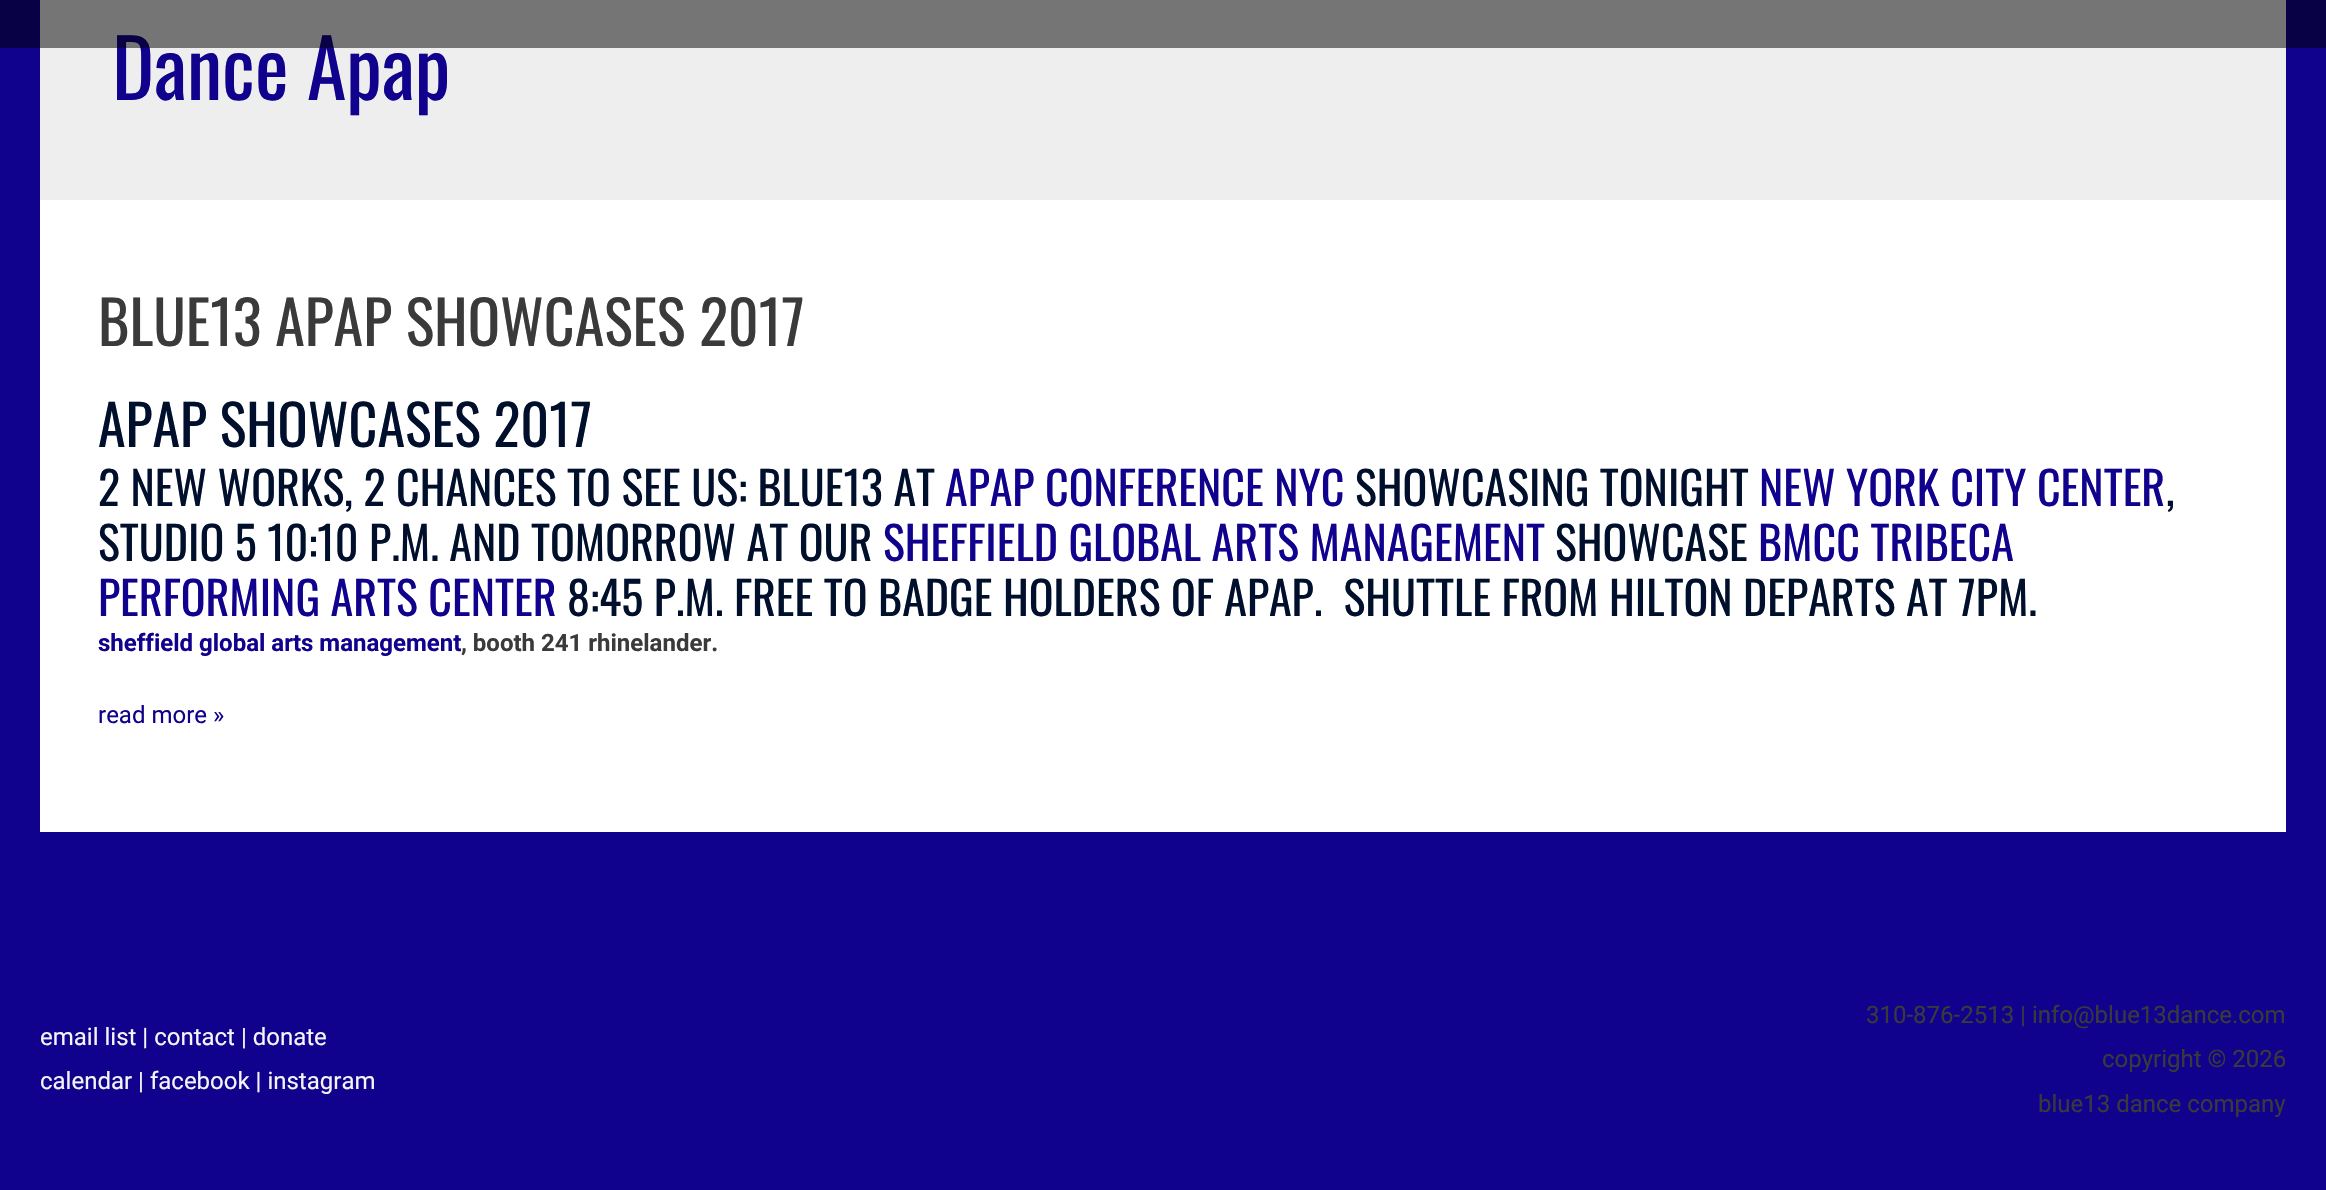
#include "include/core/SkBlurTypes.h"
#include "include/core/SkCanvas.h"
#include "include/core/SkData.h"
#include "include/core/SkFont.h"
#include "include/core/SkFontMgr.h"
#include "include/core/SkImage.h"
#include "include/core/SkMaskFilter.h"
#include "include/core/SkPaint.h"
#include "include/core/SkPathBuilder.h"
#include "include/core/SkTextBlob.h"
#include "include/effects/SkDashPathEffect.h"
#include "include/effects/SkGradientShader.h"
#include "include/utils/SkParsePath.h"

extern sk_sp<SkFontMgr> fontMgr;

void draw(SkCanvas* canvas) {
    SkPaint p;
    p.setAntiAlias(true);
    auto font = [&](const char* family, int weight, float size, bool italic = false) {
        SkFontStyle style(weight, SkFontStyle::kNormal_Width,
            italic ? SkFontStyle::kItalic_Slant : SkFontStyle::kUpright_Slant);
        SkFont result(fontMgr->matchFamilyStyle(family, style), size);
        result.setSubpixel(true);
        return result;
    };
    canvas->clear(0xFF10028D);
    p.setColor(0xFFEEEEEE);
    canvas->drawRect(SkRect::MakeLTRB(40, 0, 2286, 200), p);
    auto font1 = font("Oswald", 400, 80);
    p.setColor(0xFF10028D);
    canvas->drawString("Dance Apap", 112, 100, font1, p);
    p.setColor(0x82000000);
    canvas->drawRect(SkRect::MakeLTRB(0, 0, 2326, 48), p);
    p.setColor(0xFFFFFFFF);
    canvas->drawRect(SkRect::MakeLTRB(40, 200, 2286, 832), p);
    auto font2 = font("Oswald", 400, 60);
    p.setColor(0xFF3A3A3A);
    canvas->drawString("BLUE13 APAP SHOWCASES 2017", 98, 346, font2, p);
    auto font3 = font("Oswald", 400, 56);
    p.setColor(0xFF000F2B);
    canvas->drawString("APAP SHOWCASES 2017", 98, 447, font3, p);
    auto font4 = font("Oswald", 400, 46);
    canvas->drawString("2 NEW WORKS, 2 CHANCES TO SEE US: BLUE13 AT", 98, 506, font4, p);
    p.setColor(0xFF10028D);
    canvas->drawString("APAP CONFERENCE NYC", 945, 506, font4, p);
    p.setColor(0xFF000F2B);
    canvas->drawString("SHOWCASING TONIGHT", 1355, 506, font4, p);
    p.setColor(0xFF10028D);
    canvas->drawString("NEW YORK CITY CENTER", 1759, 506, font4, p);
    p.setColor(0xFF000F2B);
    canvas->drawString(",", 2166, 506, font4, p);
    canvas->drawString("STUDIO 5 10:10 P.M. AND TOMORROW AT OUR", 98, 561, font4, p);
    p.setColor(0xFF10028D);
    canvas->drawString("SHEFFIELD GLOBAL ARTS MANAGEMENT", 883, 561, font4, p);
    p.setColor(0xFF000F2B);
    canvas->drawString("SHOWCASE", 1555, 561, font4, p);
    p.setColor(0xFF10028D);
    canvas->drawString("BMCC TRIBECA", 1758, 561, font4, p);
    canvas->drawString("PERFORMING ARTS CENTER", 98, 616, font4, p);
    p.setColor(0xFF000F2B);
    canvas->drawString("8:45 P.M. FREE TO BADGE HOLDERS OF APAP.  SHUTTLE FROM HILTON DEPARTS AT 7PM.", 567, 616, font4, p);
    auto font5 = font("Roboto", 700, 24);
    p.setColor(0xFF10028D);
    canvas->drawString("sheffield global arts management", 98, 651, font5, p);
    p.setColor(0xFF3A3A3A);
    canvas->drawString(", booth 241 rhinelander.", 461, 651, font5, p);
    auto font6 = font("Roboto", 400, 24);
    p.setColor(0xFF10028D);
    canvas->drawString("read more »", 98, 723, font6, p);
    p.setColor(0xFFF5F5F5);
    canvas->drawString("email list | contact | donate", 40, 1045, font6, p);
    canvas->drawString("calendar | facebook | instagram", 40, 1089, font6, p);
    p.setColor(0xFF3A3A3A);
    {
        const struct { const char* s; float x, y; } items[] = {
            {"310-876-2513 | info@blue13dance.com", 1866, 1023},
            {"copyright © 2026", 2102, 1067},
            {"blue13 dance company", 2038, 1112},
        };
        for (auto [s, x, y] : items) {
            canvas->drawString(s, x, y, font6, p);
        }
    }
}
